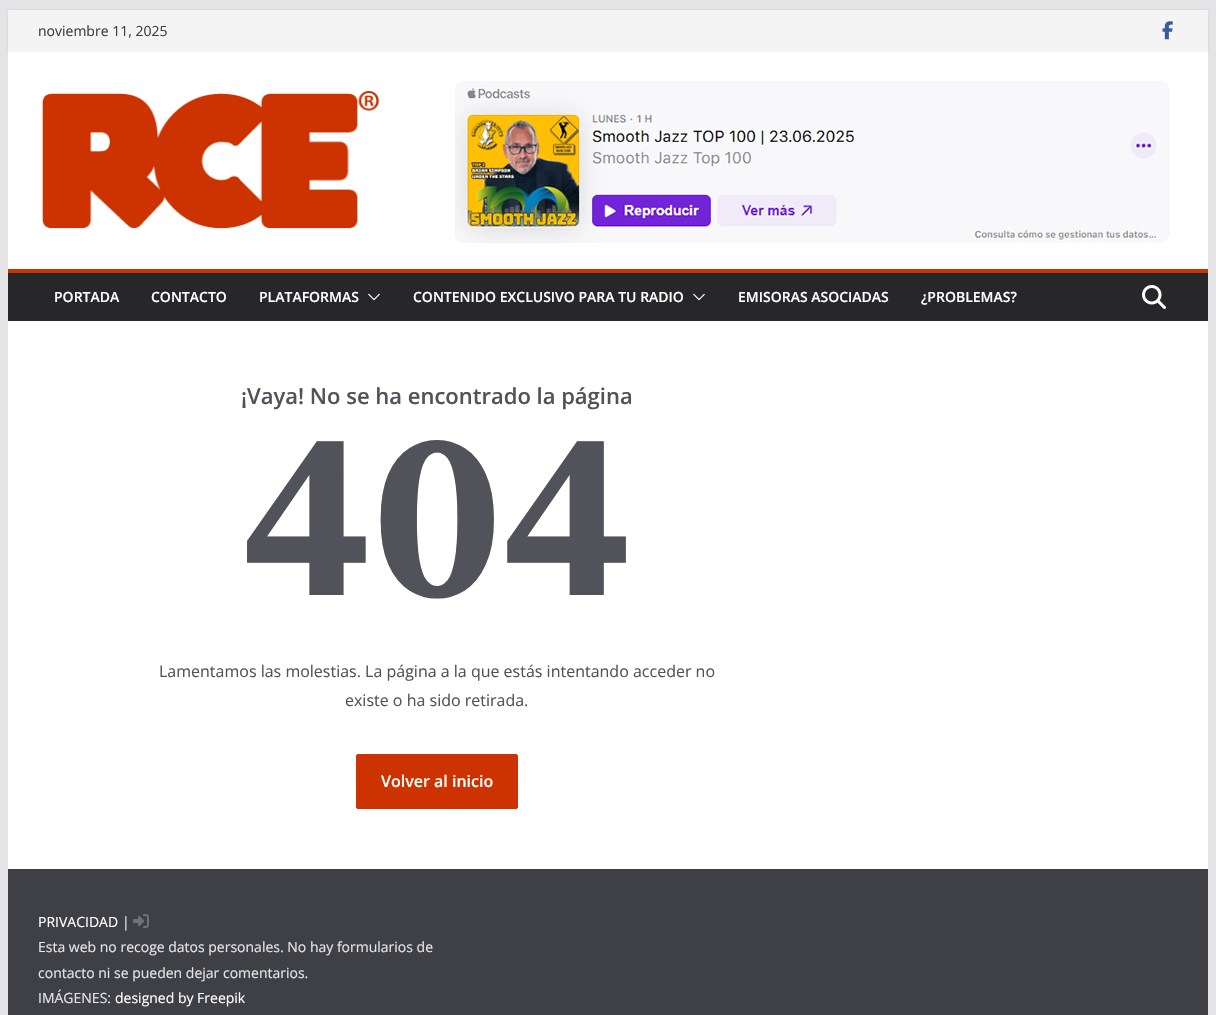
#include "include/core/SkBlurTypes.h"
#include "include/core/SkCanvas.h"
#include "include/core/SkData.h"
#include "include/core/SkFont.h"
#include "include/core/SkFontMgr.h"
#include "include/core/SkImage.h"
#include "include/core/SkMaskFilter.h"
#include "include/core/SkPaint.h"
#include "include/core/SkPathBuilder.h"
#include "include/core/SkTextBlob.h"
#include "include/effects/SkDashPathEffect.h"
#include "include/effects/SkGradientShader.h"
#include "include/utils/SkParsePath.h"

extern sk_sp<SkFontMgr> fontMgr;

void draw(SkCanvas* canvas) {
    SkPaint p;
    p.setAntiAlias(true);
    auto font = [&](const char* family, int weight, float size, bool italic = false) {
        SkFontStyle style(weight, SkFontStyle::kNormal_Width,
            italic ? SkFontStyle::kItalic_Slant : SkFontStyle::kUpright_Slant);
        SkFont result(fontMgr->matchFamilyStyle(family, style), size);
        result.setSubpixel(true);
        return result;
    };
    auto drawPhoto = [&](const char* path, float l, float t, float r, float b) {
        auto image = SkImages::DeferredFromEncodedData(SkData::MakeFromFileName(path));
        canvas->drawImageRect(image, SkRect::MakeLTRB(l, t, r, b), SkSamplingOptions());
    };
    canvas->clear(0xFFE4E4E7);
    p.setColor(0xFFFFFFFF);
    canvas->drawRect(SkRect::MakeLTRB(8, 51, 1208, 269), p);
    p.setColor(0x1A000000);
    p.setMaskFilter(SkMaskFilter::MakeBlur(kNormal_SkBlurStyle, 1));
    canvas->drawRect(SkRect::MakeLTRB(8, 10, 1208, 51), p);
    p.setMaskFilter(nullptr);
    p.setColor(0xFFF4F4F5);
    canvas->drawRect(SkRect::MakeLTRB(8, 10, 1208, 51), p);
    auto font1 = font("Open Sans", 400, 14);
    p.setColor(0xFF3F3F46);
    canvas->drawString("noviembre 11, 2025", 38, 36, font1, p);
    drawPhoto("media/1.png", 1162, 21, 1173, 40);
    drawPhoto("media/2.png", 42, 91, 380, 229);
    drawPhoto("media/3.png", 455, 81, 1170, 243);
    p.setColor(0xFF27272A);
    canvas->drawRect(SkRect::MakeLTRB(8, 273, 1208, 321), p);
    p.setColor(0xFFCC3300);
    canvas->drawRect(SkRect::MakeLTRB(8, 269, 1208, 273), p);
    auto font2 = font("Open Sans", 600, 14);
    p.setColor(0xFFFFFFFF);
    {
        const struct { const char* s; float x, y; } items[] = {
            {"PORTADA", 54, 302},
            {"CONTACTO", 151, 302},
            {"PLATAFORMAS", 259, 302},
        };
        for (auto [s, x, y] : items) {
            canvas->drawString(s, x, y, font2, p);
        }
    }
    drawPhoto("media/4.png", 368, 293, 380, 301);
    canvas->drawString("CONTENIDO EXCLUSIVO PARA TU RADIO", 413, 302, font2, p);
    drawPhoto("media/4.png", 693, 293, 705, 301);
    canvas->drawString("EMISORAS ASOCIADAS", 738, 302, font2, p);
    canvas->drawString("¿PROBLEMAS?", 921, 302, font2, p);
    drawPhoto("media/5.png", 1142, 285, 1166, 309);
    canvas->drawRect(SkRect::MakeLTRB(8, 321, 1208, 869), p);
    auto font3 = font("Open Sans", 600, 22);
    p.setColor(0xFF52525B);
    canvas->drawString("¡Vaya! No se ha encontrado la página", 241, 404, font3, p);
    auto font4 = font("Source Serif Pro", 700, 240);
    canvas->drawString("404", 242, 595, font4, p);
    auto font5 = font("Open Sans", 400, 16);
    canvas->drawString("Lamentamos las molestias. La página a la que estás intentando acceder no", 159, 677, font5, p);
    canvas->drawString("existe o ha sido retirada.", 345, 706, font5, p);
    p.setColor(0xFFCC3300);
    canvas->drawRoundRect(SkRect::MakeLTRB(356.5f, 754.5f, 517.5f, 808.5f), 1.5f, 1.5f, p);
    p.setStyle(SkPaint::kStroke_Style);
    p.setStrokeWidth(1);
    canvas->drawRoundRect(SkRect::MakeLTRB(356.5f, 754.5f, 517.5f, 808.5f), 1.5f, 1.5f, p);
    auto font6 = font("Open Sans", 600, 16);
    p.setStyle(SkPaint::kFill_Style);
    p.setColor(0xFFFFFFFF);
    canvas->drawString("Volver al inicio", 381, 787, font6, p);
    p.setColor(0xFF3F3F46);
    canvas->drawRect(SkRect::MakeLTRB(8, 869, 1208, 1015), p);
    p.setColor(0xFFFFFFFF);
    canvas->drawString("PRIVACIDAD", 38, 927, font1, p);
    p.setColor(0xFFE4E4E7);
    canvas->drawString("|", 122, 927, font1, p);
    drawPhoto("media/6.png", 133, 914, 149, 928);
    {
        const struct { const char* s; float x, y; } items[] = {
            {"Esta web no recoge datos personales. No hay formularios de", 38, 952},
            {"contacto ni se pueden dejar comentarios.", 38, 978},
            {"IMÁGENES:", 38, 1003},
        };
        for (auto [s, x, y] : items) {
            canvas->drawString(s, x, y, font1, p);
        }
    }
    p.setColor(0xFFFFFFFF);
    canvas->drawString("designed by Freepik", 115, 1003, font1, p);
}
